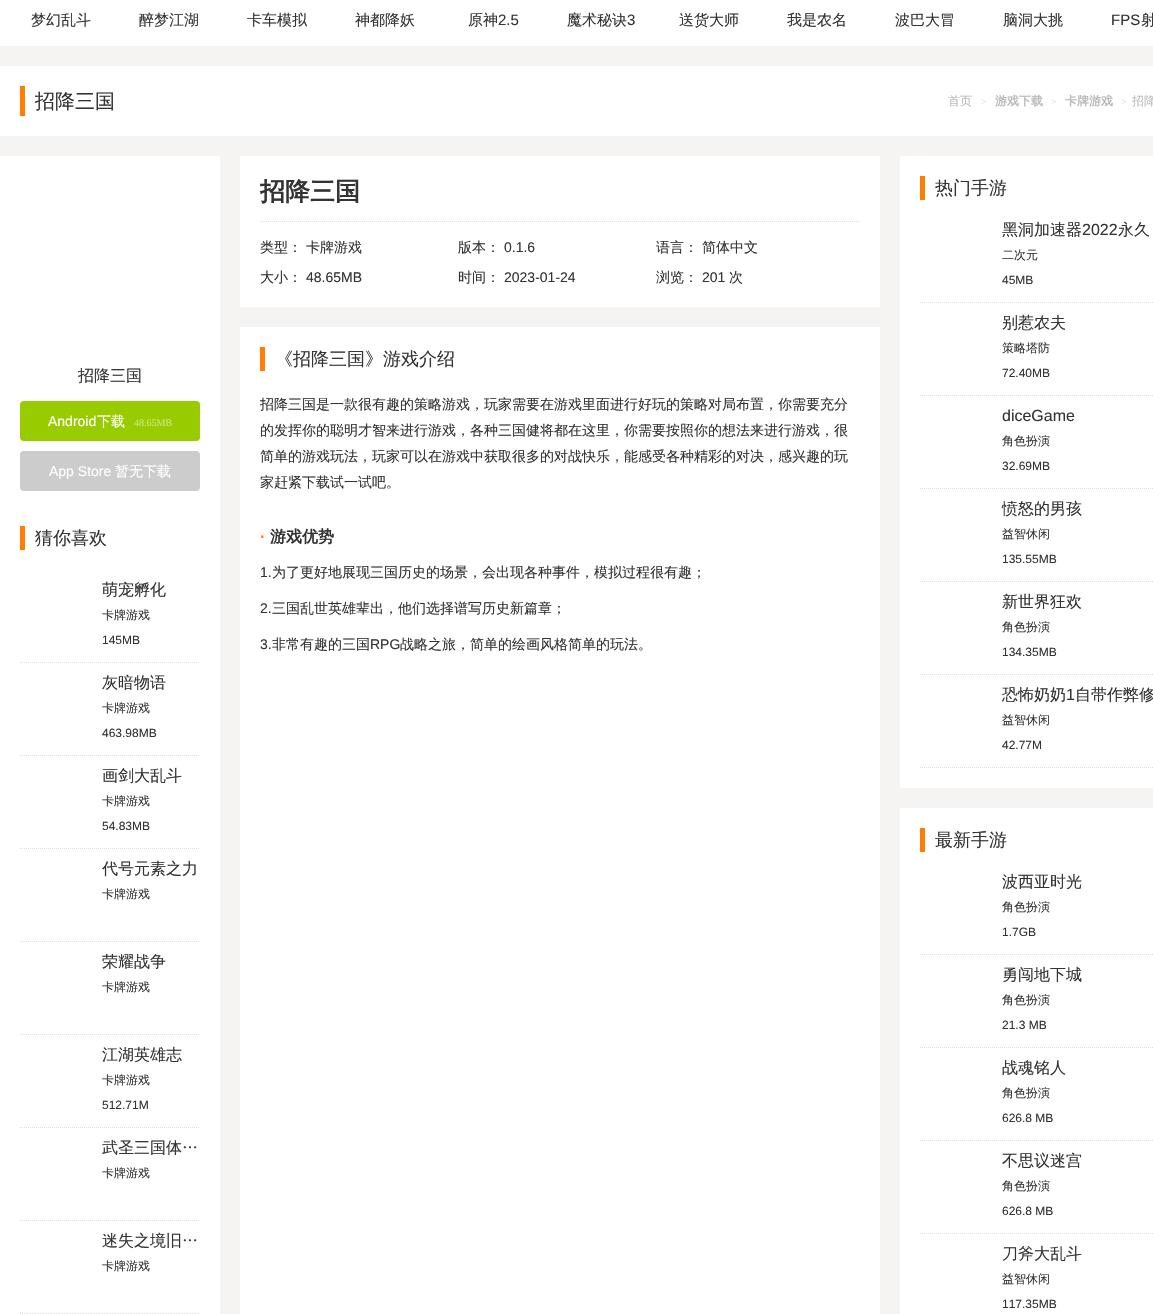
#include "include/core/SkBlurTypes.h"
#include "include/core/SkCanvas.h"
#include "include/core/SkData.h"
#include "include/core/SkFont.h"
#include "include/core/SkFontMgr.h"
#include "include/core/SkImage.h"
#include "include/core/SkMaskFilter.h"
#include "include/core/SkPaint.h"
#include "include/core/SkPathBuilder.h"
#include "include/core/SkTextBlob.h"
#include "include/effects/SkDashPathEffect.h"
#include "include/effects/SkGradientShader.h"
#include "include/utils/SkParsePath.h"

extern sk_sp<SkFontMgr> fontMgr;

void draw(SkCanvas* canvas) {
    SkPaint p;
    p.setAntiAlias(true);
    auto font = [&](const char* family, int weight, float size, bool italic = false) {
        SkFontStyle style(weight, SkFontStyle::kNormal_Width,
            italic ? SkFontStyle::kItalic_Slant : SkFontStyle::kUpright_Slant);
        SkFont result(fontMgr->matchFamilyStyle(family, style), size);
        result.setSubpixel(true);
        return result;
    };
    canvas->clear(0xFFF5F4F3);
    p.setColor(0xFFFFFFFF);
    canvas->drawRoundRect(SkRect::MakeLTRB(0, -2, 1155, 46), 2, 2, p);
    auto font1 = font("WenQuanYi Zen Hei", 500, 15);
    p.setColor(0xFF333333);
    {
        const struct { const char* s; float x, y; } items[] = {
            {"梦幻乱斗", 31, 25},
            {"醉梦江湖", 139, 25},
            {"卡车模拟", 247, 25},
            {"神都降妖", 355, 25},
            {"原神", 468, 25},
        };
        for (auto [s, x, y] : items) {
            canvas->drawString(s, x, y, font1, p);
        }
    }
    auto font2 = font("Liberation Sans", 400, 15);
    canvas->drawString("2.5", 498, 25, font2, p);
    canvas->drawString("魔术秘诀", 567, 25, font1, p);
    canvas->drawString("3", 627, 25, font2, p);
    {
        const struct { const char* s; float x, y; } items[] = {
            {"送货大师", 679, 25},
            {"我是农名", 787, 25},
            {"波巴大冒", 895, 25},
            {"脑洞大挑", 1003, 25},
        };
        for (auto [s, x, y] : items) {
            canvas->drawString(s, x, y, font1, p);
        }
    }
    canvas->drawString("FPS", 1111, 25, font2, p);
    canvas->drawString("射", 1141, 25, font1, p);
    p.setColor(0xFFFFFFFF);
    canvas->drawRect(SkRect::MakeLTRB(0, 66, 1153, 136), p);
    p.setColor(0xFFFF7D00);
    canvas->drawRect(SkRect::MakeLTRB(20, 86, 25, 116), p);
    auto font3 = font("WenQuanYi Zen Hei", 500, 20);
    p.setColor(0xFF333333);
    canvas->drawString("招降三国", 35, 108, font3, p);
    auto font4 = font("WenQuanYi Zen Hei", 500, 12);
    p.setColor(0xFFBBBBBB);
    canvas->drawString("首页", 948, 105, font4, p);
    auto font5 = font("Liberation Serif", 400, 10);
    p.setColor(0xFFDDDDDD);
    canvas->drawString(">", 981, 105, font5, p);
    auto font6 = font("WenQuanYi Zen Hei", 700, 12);
    p.setColor(0xFFBBBBBB);
    canvas->drawString("游戏下载", 995, 105, font6, p);
    p.setColor(0xFFDDDDDD);
    canvas->drawString(">", 1051, 105, font5, p);
    p.setColor(0xFFBBBBBB);
    canvas->drawString("卡牌游戏", 1065, 105, font6, p);
    p.setColor(0xFFDDDDDD);
    canvas->drawString(">", 1121, 105, font5, p);
    p.setColor(0xFFBBBBBB);
    canvas->drawString("招降", 1132, 105, font4, p);
    p.setColor(0xFFFFFFFF);
    canvas->drawRect(SkRect::MakeLTRB(0, 156, 220, 1314), p);
    auto font7 = font("WenQuanYi Zen Hei", 500, 16);
    p.setColor(0xFF333333);
    canvas->drawString("招降三国", 78, 381, font7, p);
    p.setColor(0xFF99CC00);
    canvas->drawRoundRect(SkRect::MakeLTRB(20, 401, 200, 441), 4, 4, p);
    auto font8 = font("Liberation Sans", 400, 14);
    p.setColor(0xFFFFFFFF);
    canvas->drawString("Android", 48, 426, font8, p);
    auto font9 = font("WenQuanYi Zen Hei", 500, 14);
    canvas->drawString("下载", 97, 426, font9, p);
    p.setColor(0xFFCCE680);
    canvas->drawString("48.65MB", 134, 426, font5, p);
    p.setColor(0xFFCCCCCC);
    canvas->drawRoundRect(SkRect::MakeLTRB(20, 451, 200, 491), 4, 4, p);
    p.setColor(0xFFFFFFFF);
    canvas->drawString("App Store", 49, 476, font8, p);
    canvas->drawString("暂无下载", 115, 476, font9, p);
    p.setColor(0xFFFF7D00);
    canvas->drawRect(SkRect::MakeLTRB(20, 526, 25, 550), p);
    auto font10 = font("WenQuanYi Zen Hei", 500, 18);
    p.setColor(0xFF333333);
    canvas->drawString("猜你喜欢", 35, 544, font10, p);
    p.setStyle(SkPaint::kStroke_Style);
    p.setStrokeWidth(1);
    p.setColor(0xFFDDDDDD);
    p.setPathEffect(SkDashPathEffect::Make({{1, 1}}, 0));
    canvas->drawPath(SkPathBuilder().moveTo(20, 662.5f).lineTo(200, 662.5f).detach(), p);
    p.setPathEffect(nullptr);
    p.setStyle(SkPaint::kFill_Style);
    p.setColor(0xFF333333);
    canvas->drawString("萌宠孵化", 102, 595, font7, p);
    canvas->drawString("卡牌游戏", 102, 619, font4, p);
    auto font11 = font("Liberation Sans", 400, 12);
    canvas->drawString("145MB", 102, 644, font11, p);
    p.setStyle(SkPaint::kStroke_Style);
    p.setColor(0xFFDDDDDD);
    p.setPathEffect(SkDashPathEffect::Make({{1, 1}}, 0));
    canvas->drawPath(SkPathBuilder().moveTo(20, 755.5f).lineTo(200, 755.5f).detach(), p);
    p.setPathEffect(nullptr);
    p.setStyle(SkPaint::kFill_Style);
    p.setColor(0xFF333333);
    canvas->drawString("灰暗物语", 102, 688, font7, p);
    canvas->drawString("卡牌游戏", 102, 712, font4, p);
    canvas->drawString("463.98MB", 102, 737, font11, p);
    p.setStyle(SkPaint::kStroke_Style);
    p.setColor(0xFFDDDDDD);
    p.setPathEffect(SkDashPathEffect::Make({{1, 1}}, 0));
    canvas->drawPath(SkPathBuilder().moveTo(20, 848.5f).lineTo(200, 848.5f).detach(), p);
    p.setPathEffect(nullptr);
    p.setStyle(SkPaint::kFill_Style);
    p.setColor(0xFF333333);
    canvas->drawString("画剑大乱斗", 102, 781, font7, p);
    canvas->drawString("卡牌游戏", 102, 805, font4, p);
    canvas->drawString("54.83MB", 102, 830, font11, p);
    p.setStyle(SkPaint::kStroke_Style);
    p.setColor(0xFFDDDDDD);
    p.setPathEffect(SkDashPathEffect::Make({{1, 1}}, 0));
    canvas->drawPath(SkPathBuilder().moveTo(20, 941.5f).lineTo(200, 941.5f).detach(), p);
    p.setPathEffect(nullptr);
    p.setStyle(SkPaint::kFill_Style);
    p.setColor(0xFF333333);
    canvas->drawString("代号元素之力", 102, 874, font7, p);
    canvas->drawString("卡牌游戏", 102, 898, font4, p);
    p.setStyle(SkPaint::kStroke_Style);
    p.setColor(0xFFDDDDDD);
    p.setPathEffect(SkDashPathEffect::Make({{1, 1}}, 0));
    canvas->drawPath(SkPathBuilder().moveTo(20, 1034.5f).lineTo(200, 1034.5f).detach(), p);
    p.setPathEffect(nullptr);
    p.setStyle(SkPaint::kFill_Style);
    p.setColor(0xFF333333);
    canvas->drawString("荣耀战争", 102, 967, font7, p);
    canvas->drawString("卡牌游戏", 102, 991, font4, p);
    p.setStyle(SkPaint::kStroke_Style);
    p.setColor(0xFFDDDDDD);
    p.setPathEffect(SkDashPathEffect::Make({{1, 1}}, 0));
    canvas->drawPath(SkPathBuilder().moveTo(20, 1127.5f).lineTo(200, 1127.5f).detach(), p);
    p.setPathEffect(nullptr);
    p.setStyle(SkPaint::kFill_Style);
    p.setColor(0xFF333333);
    canvas->drawString("江湖英雄志", 102, 1060, font7, p);
    canvas->drawString("卡牌游戏", 102, 1084, font4, p);
    canvas->drawString("512.71M", 102, 1109, font11, p);
    p.setStyle(SkPaint::kStroke_Style);
    p.setColor(0xFFDDDDDD);
    p.setPathEffect(SkDashPathEffect::Make({{1, 1}}, 0));
    canvas->drawPath(SkPathBuilder().moveTo(20, 1220.5f).lineTo(200, 1220.5f).detach(), p);
    p.setPathEffect(nullptr);
    p.setStyle(SkPaint::kFill_Style);
    p.setColor(0xFF333333);
    canvas->drawString("武圣三国体…", 102, 1153, font7, p);
    canvas->drawString("卡牌游戏", 102, 1177, font4, p);
    p.setStyle(SkPaint::kStroke_Style);
    p.setColor(0xFFDDDDDD);
    p.setPathEffect(SkDashPathEffect::Make({{1, 1}}, 0));
    canvas->drawPath(SkPathBuilder().moveTo(20, 1313.5f).lineTo(200, 1313.5f).detach(), p);
    p.setPathEffect(nullptr);
    p.setStyle(SkPaint::kFill_Style);
    p.setColor(0xFF333333);
    canvas->drawString("迷失之境旧…", 102, 1246, font7, p);
    canvas->drawString("卡牌游戏", 102, 1270, font4, p);
    p.setColor(0xFFFFFFFF);
    canvas->drawRect(SkRect::MakeLTRB(240, 156, 880, 307), p);
    auto font12 = font("WenQuanYi Zen Hei", 700, 25);
    p.setColor(0xFF333333);
    canvas->drawString("招降三国", 260, 200, font12, p);
    p.setStyle(SkPaint::kStroke_Style);
    p.setColor(0xFFDDDDDD);
    p.setPathEffect(SkDashPathEffect::Make({{1, 1}}, 0));
    canvas->drawPath(SkPathBuilder().moveTo(260, 221.5f).lineTo(860, 221.5f).detach(), p);
    p.setPathEffect(nullptr);
    p.setStyle(SkPaint::kFill_Style);
    p.setColor(0xFF333333);
    {
        const struct { const char* s; float x, y; } items[] = {
            {"类型：", 260, 252},
            {"卡牌游戏", 306, 252},
            {"版本：", 458, 252},
        };
        for (auto [s, x, y] : items) {
            canvas->drawString(s, x, y, font9, p);
        }
    }
    canvas->drawString("0.1.6", 504, 252, font8, p);
    {
        const struct { const char* s; float x, y; } items[] = {
            {"语言：", 656, 252},
            {"简体中文", 702, 252},
            {"大小：", 260, 282},
        };
        for (auto [s, x, y] : items) {
            canvas->drawString(s, x, y, font9, p);
        }
    }
    canvas->drawString("48.65MB", 306, 282, font8, p);
    canvas->drawString("时间：", 458, 282, font9, p);
    canvas->drawString("2023-01-24", 504, 282, font8, p);
    canvas->drawString("浏览：", 656, 282, font9, p);
    canvas->drawString("201", 702, 282, font8, p);
    canvas->drawString("次", 729, 282, font9, p);
    p.setColor(0xFFFFFFFF);
    canvas->drawRect(SkRect::MakeLTRB(240, 327, 880, 1314), p);
    p.setColor(0xFFFF7D00);
    canvas->drawRect(SkRect::MakeLTRB(260, 347, 265, 371), p);
    p.setColor(0xFF333333);
    canvas->drawString("《招降三国》游戏介绍", 275, 365, font10, p);
    {
        const struct { const char* s; float x, y; } items[] = {
            {"招降三国是一款很有趣的策略游戏，玩家需要在游戏里面进行好玩的策略对局布置，你需要充分", 260, 409},
            {"的发挥你的聪明才智来进行游戏，各种三国健将都在这里，你需要按照你的想法来进行游戏，很", 260, 435},
            {"简单的游戏玩法，玩家可以在游戏中获取很多的对战快乐，能感受各种精彩的对决，感兴趣的玩", 260, 461},
            {"家赶紧下载试一试吧。", 260, 487},
        };
        for (auto [s, x, y] : items) {
            canvas->drawString(s, x, y, font9, p);
        }
    }
    auto font13 = font("Liberation Sans", 700, 16);
    p.setColor(0xFFFF7D00);
    canvas->drawString("·", 260, 542, font13, p);
    auto font14 = font("WenQuanYi Zen Hei", 700, 16);
    p.setColor(0xFF333333);
    canvas->drawString("游戏优势", 270, 542, font14, p);
    canvas->drawString("1.", 260, 577, font8, p);
    canvas->drawString("为了更好地展现三国历史的场景，会出现各种事件，模拟过程很有趣；", 272, 577, font9, p);
    canvas->drawString("2.", 260, 613, font8, p);
    canvas->drawString("三国乱世英雄辈出，他们选择谱写历史新篇章；", 272, 613, font9, p);
    canvas->drawString("3.", 260, 649, font8, p);
    canvas->drawString("非常有趣的三国", 272, 649, font9, p);
    canvas->drawString("RPG", 370, 649, font8, p);
    canvas->drawString("战略之旅，简单的绘画风格简单的玩法。", 400, 649, font9, p);
    p.setColor(0xFFFFFFFF);
    canvas->drawRect(SkRect::MakeLTRB(900, 156, 1153, 788), p);
    p.setColor(0xFFFF7D00);
    canvas->drawRect(SkRect::MakeLTRB(920, 176, 925, 200), p);
    p.setColor(0xFF333333);
    canvas->drawString("热门手游", 935, 194, font10, p);
    p.setStyle(SkPaint::kStroke_Style);
    p.setColor(0xFFDDDDDD);
    p.setPathEffect(SkDashPathEffect::Make({{1, 1}}, 0));
    canvas->drawPath(SkPathBuilder().moveTo(920, 302.5f).lineTo(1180, 302.5f).detach(), p);
    p.setPathEffect(nullptr);
    p.setStyle(SkPaint::kFill_Style);
    p.setColor(0xFF333333);
    canvas->drawString("黑洞加速器", 1002, 235, font7, p);
    auto font15 = font("Liberation Sans", 400, 16);
    canvas->drawString("2022", 1082, 235, font15, p);
    canvas->drawString("永久", 1118, 235, font7, p);
    canvas->drawString("二次元", 1002, 259, font4, p);
    canvas->drawString("45MB", 1002, 284, font11, p);
    p.setStyle(SkPaint::kStroke_Style);
    p.setColor(0xFFDDDDDD);
    p.setPathEffect(SkDashPathEffect::Make({{1, 1}}, 0));
    canvas->drawPath(SkPathBuilder().moveTo(920, 395.5f).lineTo(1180, 395.5f).detach(), p);
    p.setPathEffect(nullptr);
    p.setStyle(SkPaint::kFill_Style);
    p.setColor(0xFF333333);
    canvas->drawString("别惹农夫", 1002, 328, font7, p);
    canvas->drawString("策略塔防", 1002, 352, font4, p);
    canvas->drawString("72.40MB", 1002, 377, font11, p);
    p.setStyle(SkPaint::kStroke_Style);
    p.setColor(0xFFDDDDDD);
    p.setPathEffect(SkDashPathEffect::Make({{1, 1}}, 0));
    canvas->drawPath(SkPathBuilder().moveTo(920, 488.5f).lineTo(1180, 488.5f).detach(), p);
    p.setPathEffect(nullptr);
    p.setStyle(SkPaint::kFill_Style);
    p.setColor(0xFF333333);
    canvas->drawString("diceGame", 1002, 421, font15, p);
    canvas->drawString("角色扮演", 1002, 445, font4, p);
    canvas->drawString("32.69MB", 1002, 470, font11, p);
    p.setStyle(SkPaint::kStroke_Style);
    p.setColor(0xFFDDDDDD);
    p.setPathEffect(SkDashPathEffect::Make({{1, 1}}, 0));
    canvas->drawPath(SkPathBuilder().moveTo(920, 581.5f).lineTo(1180, 581.5f).detach(), p);
    p.setPathEffect(nullptr);
    p.setStyle(SkPaint::kFill_Style);
    p.setColor(0xFF333333);
    canvas->drawString("愤怒的男孩", 1002, 514, font7, p);
    canvas->drawString("益智休闲", 1002, 538, font4, p);
    canvas->drawString("135.55MB", 1002, 563, font11, p);
    p.setStyle(SkPaint::kStroke_Style);
    p.setColor(0xFFDDDDDD);
    p.setPathEffect(SkDashPathEffect::Make({{1, 1}}, 0));
    canvas->drawPath(SkPathBuilder().moveTo(920, 674.5f).lineTo(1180, 674.5f).detach(), p);
    p.setPathEffect(nullptr);
    p.setStyle(SkPaint::kFill_Style);
    p.setColor(0xFF333333);
    canvas->drawString("新世界狂欢", 1002, 607, font7, p);
    canvas->drawString("角色扮演", 1002, 631, font4, p);
    canvas->drawString("134.35MB", 1002, 656, font11, p);
    p.setStyle(SkPaint::kStroke_Style);
    p.setColor(0xFFDDDDDD);
    p.setPathEffect(SkDashPathEffect::Make({{1, 1}}, 0));
    canvas->drawPath(SkPathBuilder().moveTo(920, 767.5f).lineTo(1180, 767.5f).detach(), p);
    p.setPathEffect(nullptr);
    p.setStyle(SkPaint::kFill_Style);
    p.setColor(0xFF333333);
    canvas->drawString("恐怖奶奶", 1002, 700, font7, p);
    canvas->drawString("1", 1066, 700, font15, p);
    canvas->drawString("自带作弊修", 1075, 700, font7, p);
    canvas->drawString("益智休闲", 1002, 724, font4, p);
    canvas->drawString("42.77M", 1002, 749, font11, p);
    p.setColor(0xFFFFFFFF);
    canvas->drawRect(SkRect::MakeLTRB(900, 808, 1153, 1314), p);
    p.setColor(0xFFFF7D00);
    canvas->drawRect(SkRect::MakeLTRB(920, 828, 925, 852), p);
    p.setColor(0xFF333333);
    canvas->drawString("最新手游", 935, 846, font10, p);
    p.setStyle(SkPaint::kStroke_Style);
    p.setColor(0xFFDDDDDD);
    p.setPathEffect(SkDashPathEffect::Make({{1, 1}}, 0));
    canvas->drawPath(SkPathBuilder().moveTo(920, 954.5f).lineTo(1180, 954.5f).detach(), p);
    p.setPathEffect(nullptr);
    p.setStyle(SkPaint::kFill_Style);
    p.setColor(0xFF333333);
    canvas->drawString("波西亚时光", 1002, 887, font7, p);
    canvas->drawString("角色扮演", 1002, 911, font4, p);
    canvas->drawString("1.7GB", 1002, 936, font11, p);
    p.setStyle(SkPaint::kStroke_Style);
    p.setColor(0xFFDDDDDD);
    p.setPathEffect(SkDashPathEffect::Make({{1, 1}}, 0));
    canvas->drawPath(SkPathBuilder().moveTo(920, 1047.5f).lineTo(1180, 1047.5f).detach(), p);
    p.setPathEffect(nullptr);
    p.setStyle(SkPaint::kFill_Style);
    p.setColor(0xFF333333);
    canvas->drawString("勇闯地下城", 1002, 980, font7, p);
    canvas->drawString("角色扮演", 1002, 1004, font4, p);
    canvas->drawString("21.3 MB", 1002, 1029, font11, p);
    p.setStyle(SkPaint::kStroke_Style);
    p.setColor(0xFFDDDDDD);
    p.setPathEffect(SkDashPathEffect::Make({{1, 1}}, 0));
    canvas->drawPath(SkPathBuilder().moveTo(920, 1140.5f).lineTo(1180, 1140.5f).detach(), p);
    p.setPathEffect(nullptr);
    p.setStyle(SkPaint::kFill_Style);
    p.setColor(0xFF333333);
    canvas->drawString("战魂铭人", 1002, 1073, font7, p);
    canvas->drawString("角色扮演", 1002, 1097, font4, p);
    canvas->drawString("626.8 MB", 1002, 1122, font11, p);
    p.setStyle(SkPaint::kStroke_Style);
    p.setColor(0xFFDDDDDD);
    p.setPathEffect(SkDashPathEffect::Make({{1, 1}}, 0));
    canvas->drawPath(SkPathBuilder().moveTo(920, 1233.5f).lineTo(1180, 1233.5f).detach(), p);
    p.setPathEffect(nullptr);
    p.setStyle(SkPaint::kFill_Style);
    p.setColor(0xFF333333);
    canvas->drawString("不思议迷宫", 1002, 1166, font7, p);
    canvas->drawString("角色扮演", 1002, 1190, font4, p);
    canvas->drawString("626.8 MB", 1002, 1215, font11, p);
    canvas->drawString("刀斧大乱斗", 1002, 1259, font7, p);
    canvas->drawString("益智休闲", 1002, 1283, font4, p);
    canvas->drawString("117.35MB", 1002, 1308, font11, p);
}
